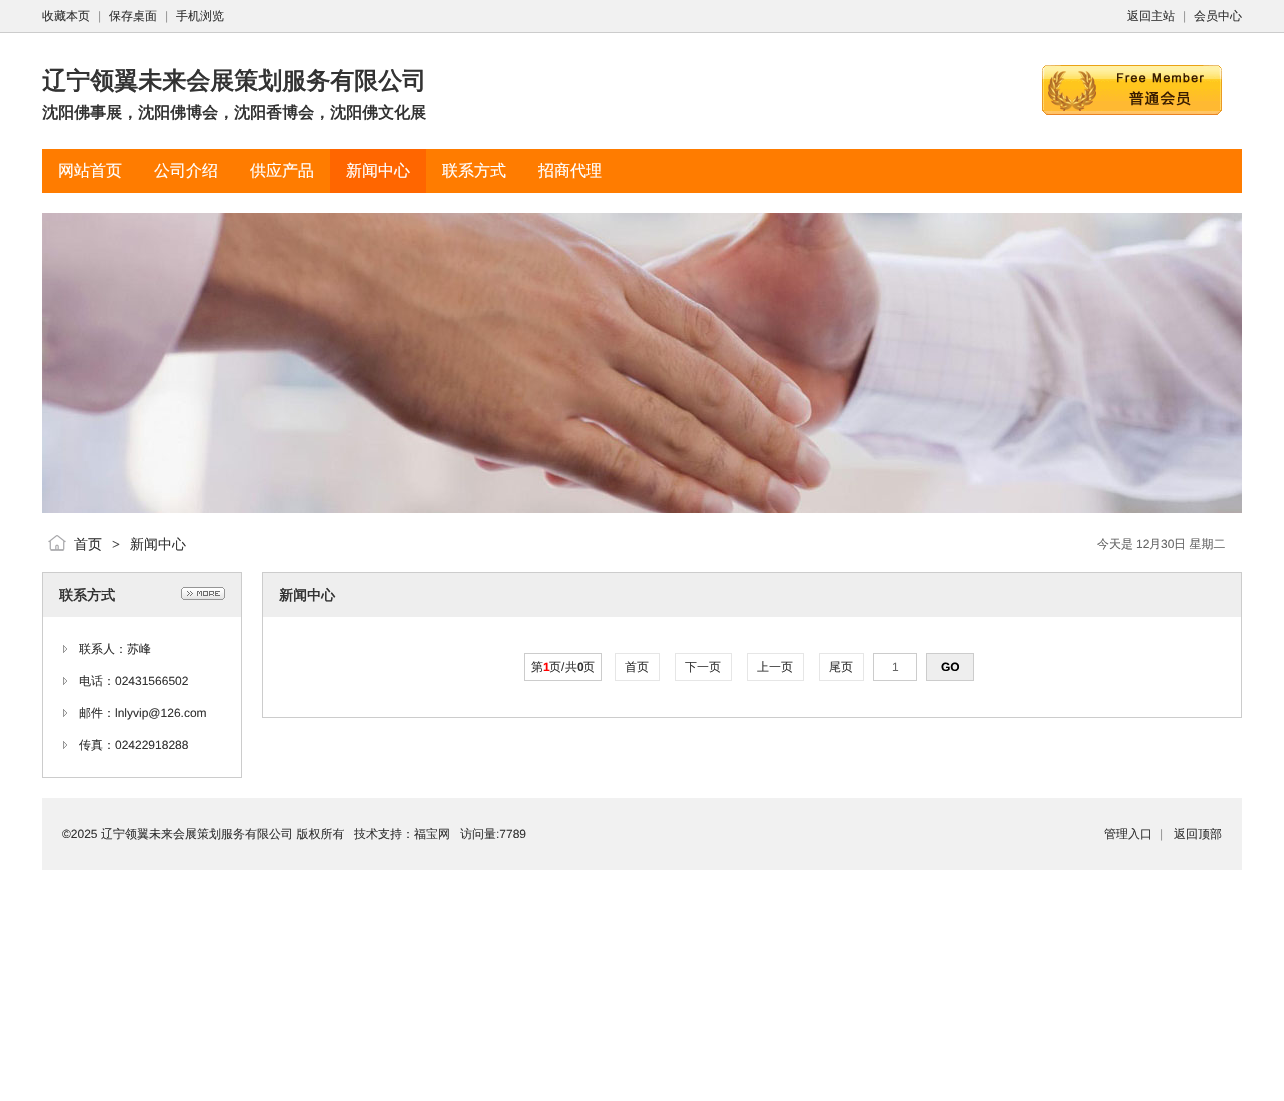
#include "include/core/SkBlurTypes.h"
#include "include/core/SkCanvas.h"
#include "include/core/SkData.h"
#include "include/core/SkFont.h"
#include "include/core/SkFontMgr.h"
#include "include/core/SkImage.h"
#include "include/core/SkMaskFilter.h"
#include "include/core/SkPaint.h"
#include "include/core/SkPathBuilder.h"
#include "include/core/SkTextBlob.h"
#include "include/effects/SkDashPathEffect.h"
#include "include/effects/SkGradientShader.h"
#include "include/utils/SkParsePath.h"

extern sk_sp<SkFontMgr> fontMgr;

void draw(SkCanvas* canvas) {
    SkPaint p;
    p.setAntiAlias(true);
    auto font = [&](const char* family, int weight, float size, bool italic = false) {
        SkFontStyle style(weight, SkFontStyle::kNormal_Width,
            italic ? SkFontStyle::kItalic_Slant : SkFontStyle::kUpright_Slant);
        SkFont result(fontMgr->matchFamilyStyle(family, style), size);
        result.setSubpixel(true);
        return result;
    };
    auto drawPhoto = [&](const char* path, float l, float t, float r, float b) {
        auto image = SkImages::DeferredFromEncodedData(SkData::MakeFromFileName(path));
        canvas->drawImageRect(image, SkRect::MakeLTRB(l, t, r, b), SkSamplingOptions());
    };
    canvas->clear(0xFFFFFFFF);
    p.setColor(0xFFF1F1F1);
    canvas->drawRect(SkRect::MakeLTRB(0, 0, 1284, 32), p);
    p.setColor(0xFFCCCCCC);
    canvas->drawRect(SkRect::MakeLTRB(0, 32, 1284, 33), p);
    auto font1 = font("WenQuanYi Zen Hei", 500, 12);
    p.setColor(0xFF333333);
    canvas->drawString("收藏本页", 42, 20, font1, p);
    auto font2 = font("Liberation Sans", 400, 12);
    p.setColor(0xFF999999);
    canvas->drawString("|", 98, 20, font2, p);
    p.setColor(0xFF333333);
    canvas->drawString("保存桌面", 109, 20, font1, p);
    p.setColor(0xFF999999);
    canvas->drawString("|", 165, 20, font2, p);
    p.setColor(0xFF333333);
    canvas->drawString("手机浏览", 176, 20, font1, p);
    canvas->drawString("返回主站", 1127, 20, font1, p);
    p.setColor(0xFF999999);
    canvas->drawString("|", 1183, 20, font2, p);
    p.setColor(0xFF333333);
    canvas->drawString("会员中心", 1194, 20, font1, p);
    auto font3 = font("WenQuanYi Zen Hei", 700, 24);
    canvas->drawString("辽宁领翼未来会展策划服务有限公司", 42, 89, font3, p);
    auto font4 = font("WenQuanYi Zen Hei", 700, 16);
    canvas->drawString("沈阳佛事展，沈阳佛博会，沈阳香博会，沈阳佛文化展", 42, 118, font4, p);
    drawPhoto("media/1.png", 1043, 65, 1221, 115);
    drawPhoto("media/2.png", 1042, 68, 1222, 114);
    p.setColor(0xFFFF7C00);
    canvas->drawRect(SkRect::MakeLTRB(42, 149, 1242, 193), p);
    auto font5 = font("WenQuanYi Zen Hei", 500, 16);
    p.setColor(0xFFFFFFFF);
    {
        const struct { const char* s; float x, y; } items[] = {
            {"网站首页", 58, 176},
            {"公司介绍", 154, 176},
            {"供应产品", 250, 176},
        };
        for (auto [s, x, y] : items) {
            canvas->drawString(s, x, y, font5, p);
        }
    }
    p.setColor(0xFFFF6600);
    canvas->drawRect(SkRect::MakeLTRB(330, 149, 426, 193), p);
    p.setColor(0xFFFFFFFF);
    {
        const struct { const char* s; float x, y; } items[] = {
            {"新闻中心", 346, 176},
            {"联系方式", 442, 176},
            {"招商代理", 538, 176},
        };
        for (auto [s, x, y] : items) {
            canvas->drawString(s, x, y, font5, p);
        }
    }
    drawPhoto("media/3.png", 42, 213, 1242, 513);
    drawPhoto("media/4.png", 48, 535, 66, 551);
    auto font6 = font("WenQuanYi Zen Hei", 500, 14);
    p.setColor(0xFF333333);
    canvas->drawString("首页", 74, 549, font6, p);
    auto font7 = font("Liberation Serif", 700, 14);
    p.setColor(0xFF444444);
    canvas->drawString(">", 112, 549, font7, p);
    p.setColor(0xFF333333);
    canvas->drawString("新闻中心", 130, 549, font6, p);
    p.setColor(0xFF666666);
    canvas->drawString("今天是", 1097, 548, font1, p);
    canvas->drawString("12", 1136, 548, font2, p);
    canvas->drawString("月", 1149, 548, font1, p);
    canvas->drawString("30", 1161, 548, font2, p);
    canvas->drawString("日 星期二", 1174, 548, font1, p);
    {
        const struct { float l, t, r, b; SkColor color; } items[] = {
            {43, 573, 241, 617, 0xFFEEEEEE},
            {42, 572, 242, 573, 0xFFCCCCCC},
            {241, 572, 242, 778, 0xFFCCCCCC},
            {42, 572, 43, 617, 0xFFCCCCCC},
        };
        for (auto [l, t, r, b, color] : items) {
            p.setColor(color);
            canvas->drawRect(SkRect::MakeLTRB(l, t, r, b), p);
        }
    }
    auto font8 = font("WenQuanYi Zen Hei", 700, 14);
    p.setColor(0xFF333333);
    canvas->drawString("联系方式", 59, 600, font8, p);
    drawPhoto("media/5.png", 181, 587, 225, 600);
    p.setColor(0xFFCCCCCC);
    canvas->drawRect(SkRect::MakeLTRB(42, 777, 242, 778), p);
    canvas->drawRect(SkRect::MakeLTRB(42, 617, 43, 778), p);
    drawPhoto("media/6.png", 63, 645, 67, 653);
    p.setColor(0xFF333333);
    canvas->drawString("联系人：苏峰", 79, 653, font1, p);
    drawPhoto("media/6.png", 63, 677, 67, 685);
    canvas->drawString("电话：", 79, 685, font1, p);
    canvas->drawString("02431566502", 115, 685, font2, p);
    drawPhoto("media/6.png", 63, 709, 67, 717);
    canvas->drawString("邮件：", 79, 717, font1, p);
    canvas->drawString("lnlyvip@126.com", 115, 717, font2, p);
    drawPhoto("media/6.png", 63, 741, 67, 749);
    canvas->drawString("传真：", 79, 749, font1, p);
    canvas->drawString("02422918288", 115, 749, font2, p);
    {
        const struct { float l, t, r, b; SkColor color; } items[] = {
            {263, 573, 1241, 617, 0xFFEEEEEE},
            {262, 572, 1242, 573, 0xFFCCCCCC},
            {1241, 572, 1242, 718, 0xFFCCCCCC},
            {262, 572, 263, 617, 0xFFCCCCCC},
        };
        for (auto [l, t, r, b, color] : items) {
            p.setColor(color);
            canvas->drawRect(SkRect::MakeLTRB(l, t, r, b), p);
        }
    }
    p.setColor(0xFF333333);
    canvas->drawString("新闻中心", 279, 600, font8, p);
    p.setColor(0xFFCCCCCC);
    canvas->drawRect(SkRect::MakeLTRB(262, 717, 1242, 718), p);
    canvas->drawRect(SkRect::MakeLTRB(262, 617, 263, 718), p);
    p.setColor(0xFF333333);
    canvas->drawString("第", 531, 671, font1, p);
    {
        const struct { float l, t, r, b; SkColor color; } items[] = {
            {524, 680, 583, 681, 0xFFCCCCCC},
            {524, 653, 602, 654, 0xFFCCCCCC},
            {524, 653, 525, 681, 0xFFCCCCCC},
        };
        for (auto [l, t, r, b, color] : items) {
            p.setColor(color);
            canvas->drawRect(SkRect::MakeLTRB(l, t, r, b), p);
        }
    }
    auto font9 = font("Liberation Sans", 700, 12);
    p.setColor(0xFFFF0000);
    canvas->drawString("1", 543, 671, font9, p);
    p.setColor(0xFF333333);
    canvas->drawString("页", 549, 671, font1, p);
    canvas->drawString("/", 561, 671, font2, p);
    canvas->drawString("共", 565, 671, font1, p);
    canvas->drawString("0", 577, 671, font9, p);
    p.setColor(0xFFCCCCCC);
    canvas->drawRect(SkRect::MakeLTRB(601, 653, 602, 681), p);
    canvas->drawRect(SkRect::MakeLTRB(583, 680, 602, 681), p);
    p.setColor(0xFF333333);
    canvas->drawString("页", 583, 671, font1, p);
    p.setStyle(SkPaint::kStroke_Style);
    p.setStrokeWidth(1);
    p.setColor(0xFFE6E6E6);
    canvas->drawRect(SkRect::MakeLTRB(615.5f, 653.5f, 659.5f, 680.5f), p);
    p.setStyle(SkPaint::kFill_Style);
    p.setColor(0xFF333333);
    canvas->drawString("首页", 625, 671, font1, p);
    p.setStyle(SkPaint::kStroke_Style);
    p.setColor(0xFFE6E6E6);
    canvas->drawRect(SkRect::MakeLTRB(675.5f, 653.5f, 731.5f, 680.5f), p);
    p.setStyle(SkPaint::kFill_Style);
    p.setColor(0xFF333333);
    canvas->drawString("下一页", 685, 671, font1, p);
    p.setStyle(SkPaint::kStroke_Style);
    p.setColor(0xFFE6E6E6);
    canvas->drawRect(SkRect::MakeLTRB(747.5f, 653.5f, 803.5f, 680.5f), p);
    p.setStyle(SkPaint::kFill_Style);
    p.setColor(0xFF333333);
    canvas->drawString("上一页", 757, 671, font1, p);
    p.setStyle(SkPaint::kStroke_Style);
    p.setColor(0xFFE6E6E6);
    canvas->drawRect(SkRect::MakeLTRB(819.5f, 653.5f, 863.5f, 680.5f), p);
    p.setStyle(SkPaint::kFill_Style);
    p.setColor(0xFF333333);
    canvas->drawString("尾页", 829, 671, font1, p);
    p.setStyle(SkPaint::kStroke_Style);
    p.setColor(0xFFCCCCCC);
    canvas->drawRect(SkRect::MakeLTRB(873.5f, 653.5f, 916.5f, 680.5f), p);
    p.setStyle(SkPaint::kFill_Style);
    p.setColor(0xFF666666);
    canvas->drawString("1", 892, 671, font2, p);
    p.setColor(0xFFEEEEEE);
    canvas->drawRect(SkRect::MakeLTRB(926.5f, 653.5f, 973.5f, 680.5f), p);
    p.setStyle(SkPaint::kStroke_Style);
    p.setColor(0xFFCCCCCC);
    canvas->drawRect(SkRect::MakeLTRB(926.5f, 653.5f, 973.5f, 680.5f), p);
    p.setStyle(SkPaint::kFill_Style);
    p.setColor(0xFF000000);
    canvas->drawString("GO", 941, 671, font9, p);
    p.setColor(0xFFF1F1F1);
    canvas->drawRect(SkRect::MakeLTRB(42, 798, 1242, 870), p);
    p.setColor(0xFF333333);
    canvas->drawString("©2025", 62, 838, font2, p);
    {
        const struct { const char* s; float x, y; } items[] = {
            {"辽宁领翼未来会展策划服务有限公司 版权所有", 101, 838},
            {"技术支持：", 354, 838},
            {"福宝网", 414, 838},
            {"访问量", 460, 838},
        };
        for (auto [s, x, y] : items) {
            canvas->drawString(s, x, y, font1, p);
        }
    }
    canvas->drawString(":7789", 496, 838, font2, p);
    canvas->drawString("管理入口", 1104, 838, font1, p);
    p.setColor(0xFF999999);
    canvas->drawString("|", 1160, 838, font2, p);
    p.setColor(0xFF333333);
    canvas->drawString("返回顶部", 1174, 838, font1, p);
}
